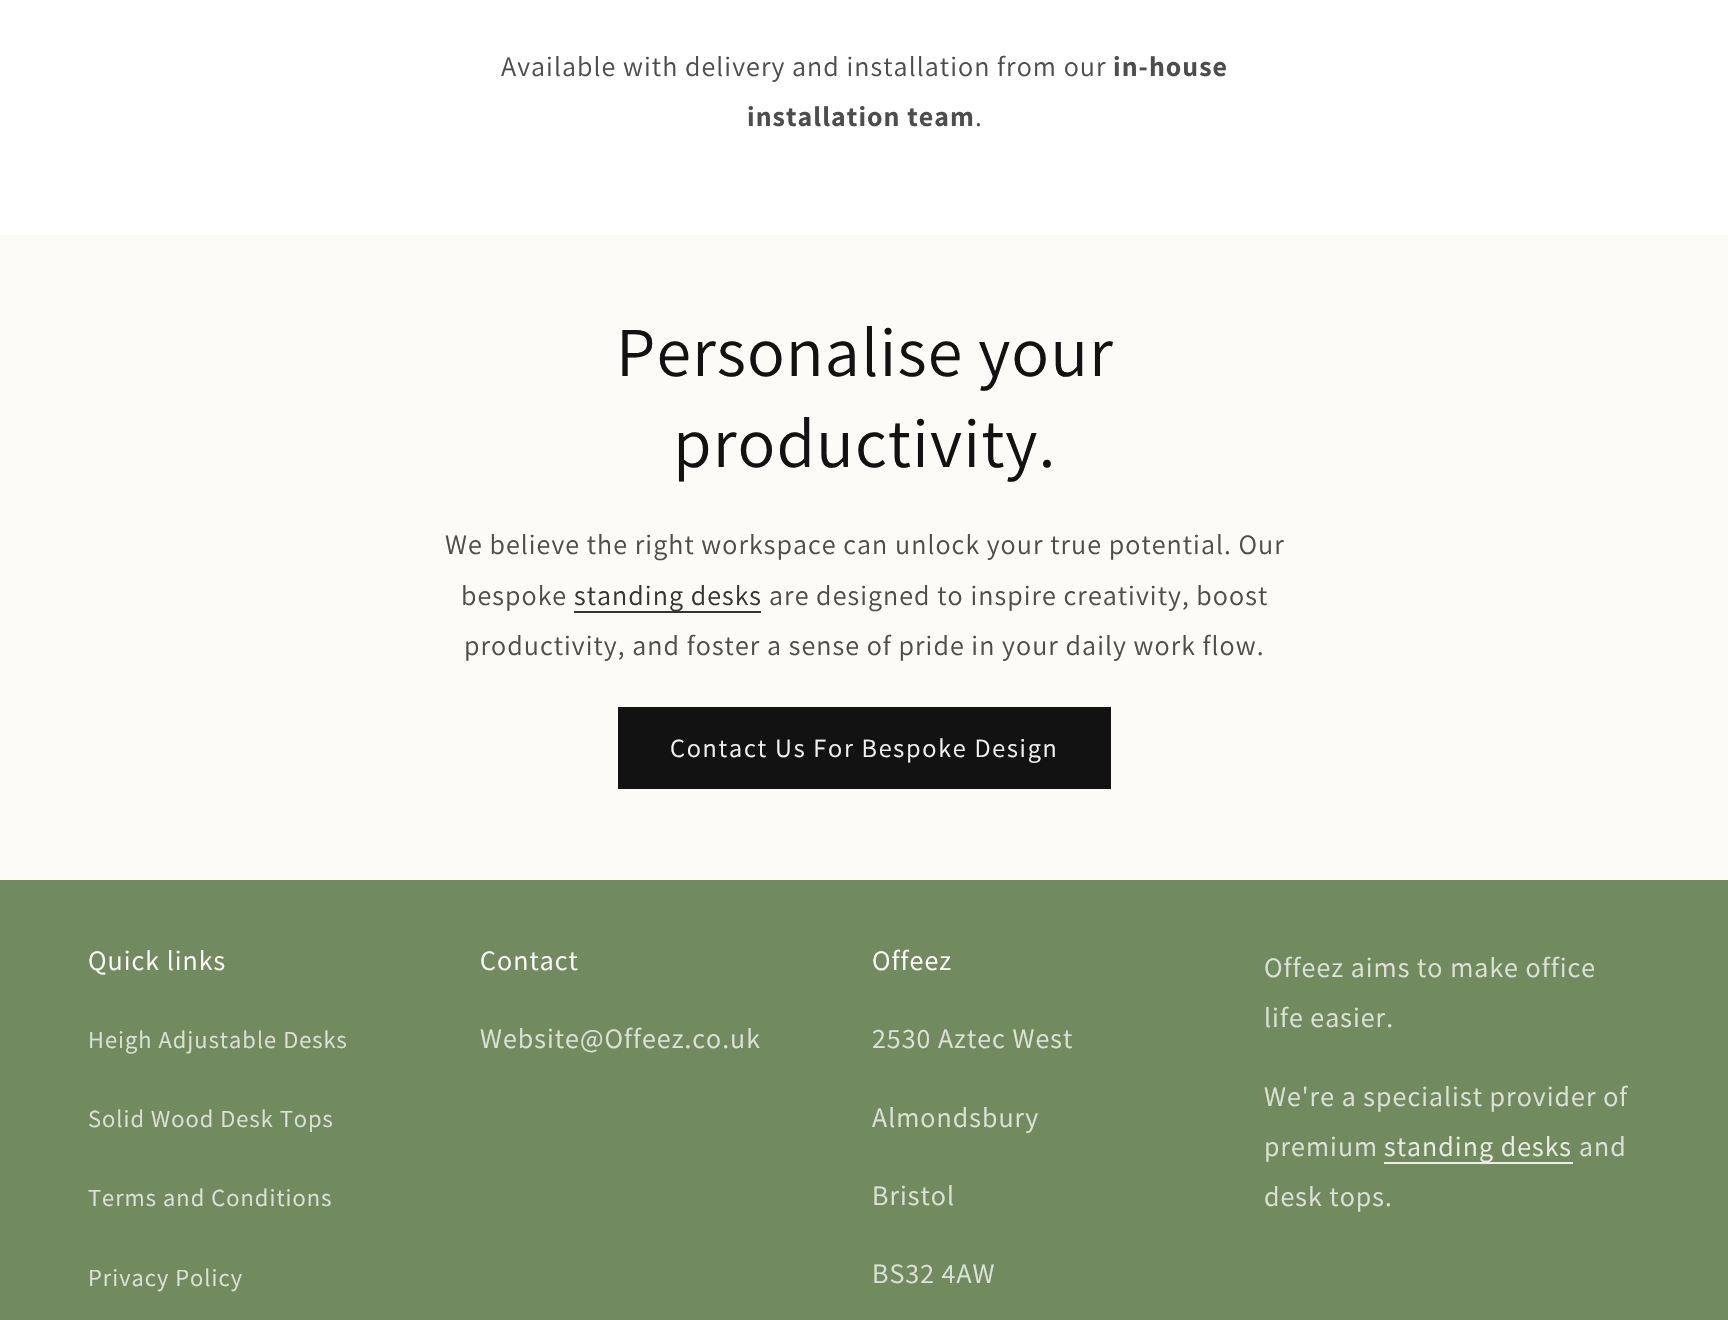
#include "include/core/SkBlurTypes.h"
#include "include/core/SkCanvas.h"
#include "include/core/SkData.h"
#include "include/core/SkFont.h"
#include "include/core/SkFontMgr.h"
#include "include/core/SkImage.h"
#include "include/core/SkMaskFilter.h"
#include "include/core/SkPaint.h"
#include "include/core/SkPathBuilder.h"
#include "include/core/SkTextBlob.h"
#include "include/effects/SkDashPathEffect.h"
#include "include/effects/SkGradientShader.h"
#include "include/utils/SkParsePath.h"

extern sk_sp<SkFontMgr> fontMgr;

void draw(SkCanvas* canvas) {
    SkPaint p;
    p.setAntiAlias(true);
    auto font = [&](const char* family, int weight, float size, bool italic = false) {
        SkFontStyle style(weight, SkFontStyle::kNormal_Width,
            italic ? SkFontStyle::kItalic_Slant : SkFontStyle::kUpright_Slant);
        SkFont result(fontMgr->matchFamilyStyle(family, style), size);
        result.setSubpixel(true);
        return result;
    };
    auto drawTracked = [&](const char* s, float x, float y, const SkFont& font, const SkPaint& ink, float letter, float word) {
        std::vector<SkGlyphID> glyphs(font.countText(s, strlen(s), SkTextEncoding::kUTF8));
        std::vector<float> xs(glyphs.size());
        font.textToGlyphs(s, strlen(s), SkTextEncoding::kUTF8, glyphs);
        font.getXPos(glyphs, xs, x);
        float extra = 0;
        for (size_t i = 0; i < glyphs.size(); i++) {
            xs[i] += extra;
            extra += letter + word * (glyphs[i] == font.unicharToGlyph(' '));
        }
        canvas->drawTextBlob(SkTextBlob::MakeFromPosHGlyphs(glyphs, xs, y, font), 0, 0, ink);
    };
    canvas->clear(0xFFFFFFFF);
    auto font1 = font("Assistant", 400, 28);
    p.setColor(0xFF4D4D4D);
    drawTracked("Available with delivery and installation from our", 501, 76, font1, p, 1.05f, 0);
    auto font2 = font("Assistant", 700, 28);
    drawTracked("in-house", 1113, 76, font2, p, 1.05f, 0);
    drawTracked("installation team", 747, 126, font2, p, 1.05f, 0);
    drawTracked(".", 975, 126, font1, p, 1.05f, 0);
    p.setColor(0xFFFDFBF7);
    canvas->drawRect(SkRect::MakeLTRB(0, 235, 1728, 880), p);
    auto font3 = font("Assistant", 400, 70);
    p.setColor(0xFF121212);
    drawTracked("Personalise your", 616, 376, font3, p, 1.05f, 0);
    drawTracked("productivity.", 673, 467, font3, p, 1.05f, 0);
    p.setColor(0xFF4D4D4D);
    drawTracked("We believe the right workspace can unlock your true potential. Our", 445, 554, font1, p, 1.05f, 0);
    drawTracked("bespoke", 461, 605, font1, p, 1.05f, 0);
    p.setColor(0xFF353534);
    canvas->drawRect(SkRect::MakeLTRB(574, 611, 761, 613), p);
    drawTracked("standing desks", 574, 605, font1, p, 1.05f, 0);
    p.setColor(0xFF4D4D4D);
    drawTracked("are designed to inspire creativity, boost", 769, 605, font1, p, 1.05f, 0);
    drawTracked("productivity, and foster a sense of pride in your daily work flow.", 464, 655, font1, p, 1.05f, 0);
    p.setColor(0xFF121212);
    canvas->drawRect(SkRect::MakeLTRB(618, 707, 1111, 789), p);
    auto font4 = font("Assistant", 400, 26.25f);
    p.setColor(0xFFF3F3F3);
    drawTracked("Contact Us For Bespoke Design", 670, 757, font4, p, 1.75f, 0);
    p.setColor(0xFF718B5E);
    canvas->drawRect(SkRect::MakeLTRB(0, 880, 1728, 1320), p);
    p.setColor(0xFFFFFFFF);
    drawTracked("Quick links", 88, 970, font1, p, 1.05f, 0);
    auto font5 = font("Assistant", 400, 24.5f);
    p.setColor(0xFFDCE2D7);
    {
        const struct { const char* s; float x, y; } items[] = {
            {"Heigh Adjustable Desks", 88, 1048},
            {"Solid Wood Desk Tops", 88, 1127},
            {"Terms and Conditions", 88, 1206},
            {"Privacy Policy", 88, 1286},
        };
        for (auto [s, x, y] : items) {
            drawTracked(s, x, y, font5, p, 1.05f, 0);
        }
    }
    p.setColor(0xFFFFFFFF);
    drawTracked("Contact", 480, 970, font1, p, 1.05f, 0);
    p.setColor(0xFFDCE2D7);
    drawTracked("Website@Offeez.co.uk", 480, 1048, font1, p, 1.05f, 0);
    p.setColor(0xFFFFFFFF);
    drawTracked("Offeez", 872, 970, font1, p, 1.05f, 0);
    p.setColor(0xFFDCE2D7);
    {
        const struct { const char* s; float x, y; } items[] = {
            {"2530 Aztec West", 872, 1048},
            {"Almondsbury", 872, 1127},
            {"Bristol", 872, 1205},
            {"BS32 4AW", 872, 1283},
            {"Offeez aims to make office", 1264, 977},
            {"life easier.", 1264, 1027},
            {"We're a specialist provider of", 1264, 1106},
            {"premium", 1264, 1156},
        };
        for (auto [s, x, y] : items) {
            drawTracked(s, x, y, font1, p, 1.05f, 0);
        }
    }
    p.setColor(0xFFEAEEE7);
    canvas->drawRect(SkRect::MakeLTRB(1384, 1162, 1573, 1164), p);
    drawTracked("standing desks", 1384, 1156, font1, p, 1.05f, 0);
    p.setColor(0xFFDCE2D7);
    drawTracked("and", 1579, 1156, font1, p, 1.05f, 0);
    drawTracked("desk tops.", 1264, 1206, font1, p, 1.05f, 0);
}
